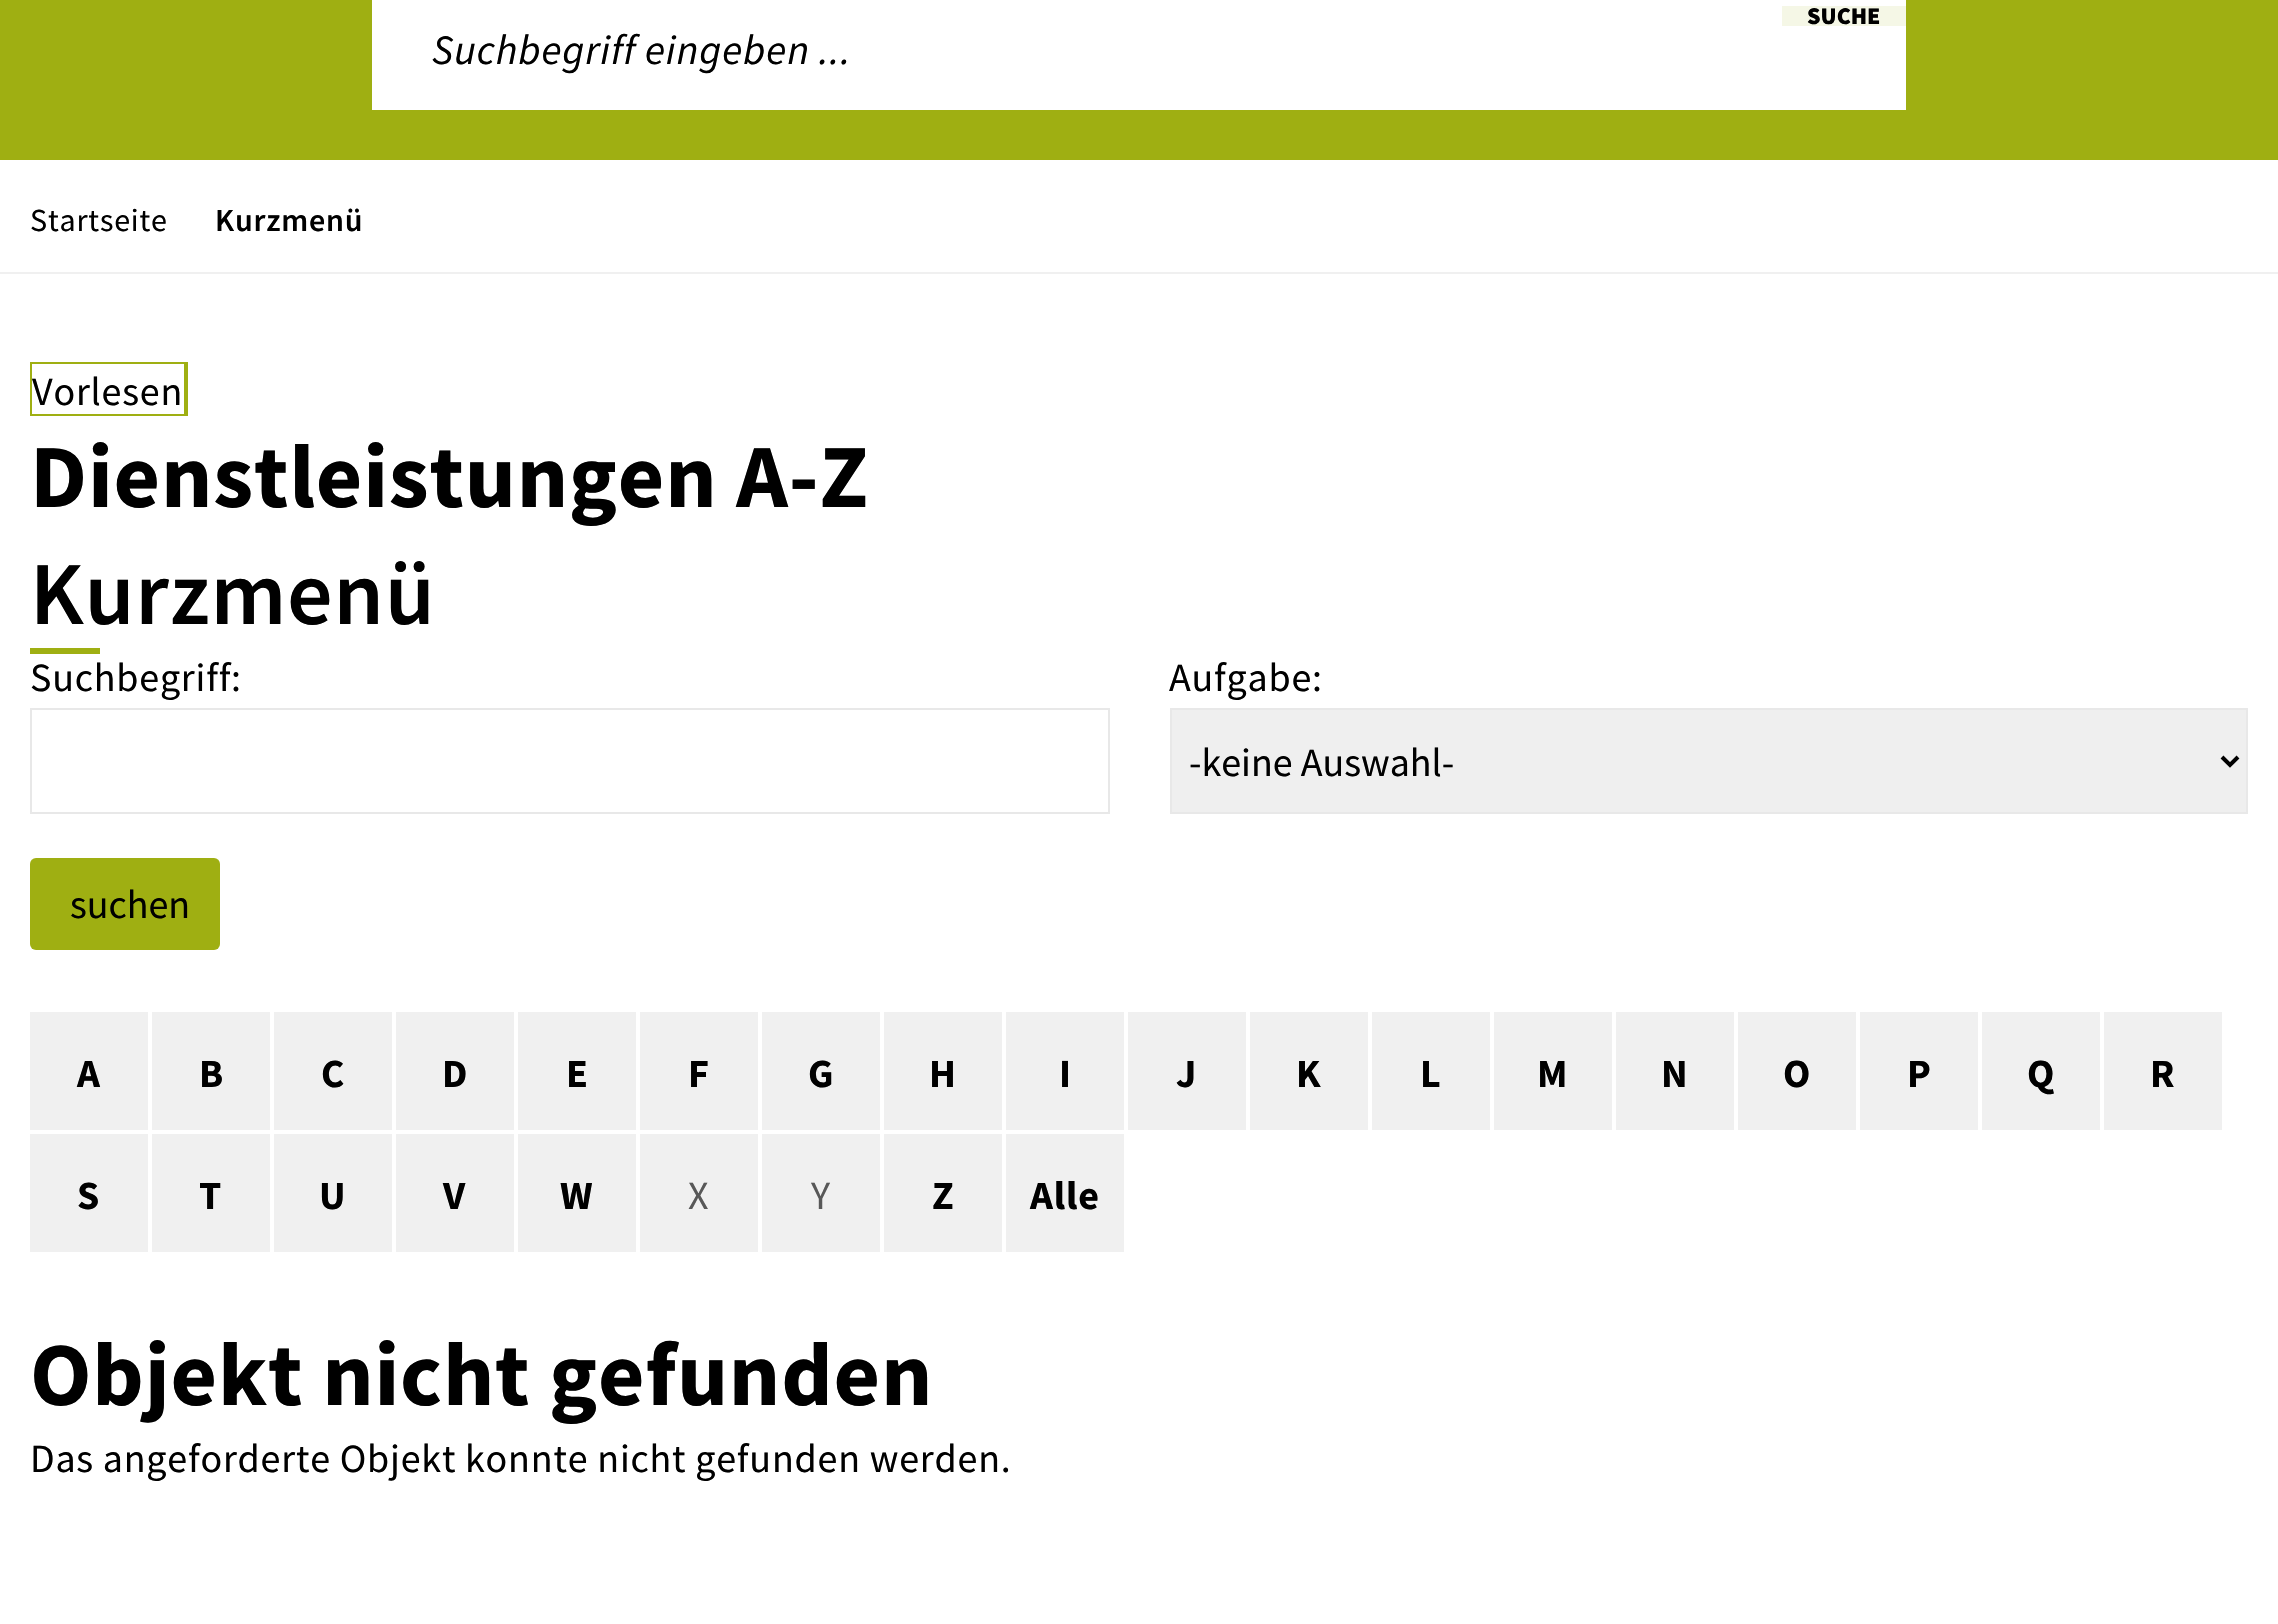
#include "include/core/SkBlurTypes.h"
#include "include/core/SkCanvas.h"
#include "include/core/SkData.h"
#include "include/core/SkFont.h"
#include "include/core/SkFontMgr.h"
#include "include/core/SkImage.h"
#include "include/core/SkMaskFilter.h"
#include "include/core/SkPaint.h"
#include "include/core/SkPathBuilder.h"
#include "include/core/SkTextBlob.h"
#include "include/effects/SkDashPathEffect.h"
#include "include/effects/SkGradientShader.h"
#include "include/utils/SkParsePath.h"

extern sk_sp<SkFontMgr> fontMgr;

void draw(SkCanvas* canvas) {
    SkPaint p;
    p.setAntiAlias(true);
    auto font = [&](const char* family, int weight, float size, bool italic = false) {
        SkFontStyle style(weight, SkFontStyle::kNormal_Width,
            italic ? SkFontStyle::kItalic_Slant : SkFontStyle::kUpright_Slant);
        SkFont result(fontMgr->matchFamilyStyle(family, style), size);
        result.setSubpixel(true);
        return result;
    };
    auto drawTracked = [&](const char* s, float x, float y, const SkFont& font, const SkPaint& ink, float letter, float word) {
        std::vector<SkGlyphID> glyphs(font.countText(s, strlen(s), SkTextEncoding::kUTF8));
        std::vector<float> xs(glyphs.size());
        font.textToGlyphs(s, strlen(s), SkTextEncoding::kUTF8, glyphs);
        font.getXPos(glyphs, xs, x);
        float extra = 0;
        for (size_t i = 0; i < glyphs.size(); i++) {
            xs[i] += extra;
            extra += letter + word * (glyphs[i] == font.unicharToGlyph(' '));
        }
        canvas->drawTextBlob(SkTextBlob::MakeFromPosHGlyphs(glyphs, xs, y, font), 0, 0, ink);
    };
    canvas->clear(0xFFFFFFFF);
    {
        const struct { float l, t, r, b; SkColor color; } items[] = {
            {0, 0, 2278, 160, 0xFF9FAF12},
            {372, 0, 1906, 110, 0xFFFFFFFF},
            {1782, 6, 1906, 26, 0xFFF5F7E6},
        };
        for (auto [l, t, r, b, color] : items) {
            p.setColor(color);
            canvas->drawRect(SkRect::MakeLTRB(l, t, r, b), p);
        }
    }
    auto font1 = font("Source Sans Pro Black", 900, 24);
    p.setColor(0xFF000000);
    canvas->drawString("SUCHE", 1807, 24, font1, p);
    auto font2 = font("Source Sans Pro", 400, 41.75f, true);
    drawTracked("Suchbegriff eingeben ...", 432, 64, font2, p, 0.8f, 0);
    p.setColor(0xFFF0F0F0);
    canvas->drawRect(SkRect::MakeLTRB(0, 272, 2278, 274), p);
    auto font3 = font("Source Sans Pro", 400, 32);
    p.setColor(0xFF000000);
    drawTracked("Startseite", 30, 231, font3, p, 0.8f, 0);
    auto font4 = font("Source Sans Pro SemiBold", 600, 32);
    drawTracked("Kurzmenü", 215, 231, font4, p, 0.8f, 0);
    auto font5 = font("Source Sans Pro", 400, 40);
    drawTracked("Vorlesen", 32, 405, font5, p, 0.8f, 0);
    {
        const struct { float l, t, r, b; SkColor color; } items[] = {
            {30, 362, 188, 364, 0xFF9FAF12},
            {30, 414, 184, 416, 0xFF9FAF12},
            {30, 362, 32, 416, 0xFF9FAF12},
            {186, 362, 188, 416, 0xFF9FAF12},
            {184, 414, 188, 416, 0xFF9FAF12},
            {184, 364, 186, 414, 0xFF9FAF12},
        };
        for (auto [l, t, r, b, color] : items) {
            p.setColor(color);
            canvas->drawRect(SkRect::MakeLTRB(l, t, r, b), p);
        }
    }
    auto font6 = font("Source Sans Pro", 700, 90);
    p.setColor(0xFF000000);
    drawTracked("Dienstleistungen A-Z", 30, 507, font6, p, 0.8f, 0);
    auto font7 = font("Source Sans Pro SemiBold", 600, 90);
    drawTracked("Kurzmenü", 30, 624, font7, p, 0.8f, 0);
    p.setColor(0xFF9FAF12);
    canvas->drawRect(SkRect::MakeLTRB(30, 648, 100, 654), p);
    p.setColor(0xFF000000);
    drawTracked("Suchbegriff:", 30, 691, font5, p, 0.8f, 0);
    p.setStyle(SkPaint::kStroke_Style);
    p.setStrokeWidth(2);
    p.setColor(0xFFE8E8E8);
    canvas->drawRect(SkRect::MakeLTRB(31, 709, 1109, 813), p);
    p.setStyle(SkPaint::kFill_Style);
    p.setColor(0xFF000000);
    drawTracked("Aufgabe:", 1169, 691, font5, p, 0.8f, 0);
    p.setColor(0xFFEFEFEF);
    canvas->drawRect(SkRect::MakeLTRB(1171, 709, 2247, 813), p);
    p.setStyle(SkPaint::kStroke_Style);
    p.setColor(0xFFE8E8E8);
    canvas->drawRect(SkRect::MakeLTRB(1171, 709, 2247, 813), p);
    p.setStrokeWidth(4);
    p.setColor(0xFF000000);
    canvas->drawPath(SkPathBuilder().moveTo(2222, 757).lineTo(2230, 765).lineTo(2238, 757).detach(), p);
    p.setStyle(SkPaint::kFill_Style);
    canvas->drawString("-keine Auswahl-", 1189, 776, font5, p);
    p.setColor(0xFF9FAF12);
    canvas->drawRoundRect(SkRect::MakeLTRB(30, 858, 220, 950), 6, 6, p);
    p.setColor(0xFF000000);
    canvas->drawString("suchen", 70, 918, font5, p);
    p.setColor(0xFFF0F0F0);
    canvas->drawRect(SkRect::MakeLTRB(30, 1012, 148, 1130), p);
    auto font8 = font("Source Sans Pro", 700, 40);
    p.setColor(0xFF000000);
    drawTracked("A", 77, 1087, font8, p, 0.8f, 0);
    p.setColor(0xFFF0F0F0);
    canvas->drawRect(SkRect::MakeLTRB(152, 1012, 270, 1130), p);
    p.setColor(0xFF000000);
    drawTracked("B", 199, 1087, font8, p, 0.8f, 0);
    p.setColor(0xFFF0F0F0);
    canvas->drawRect(SkRect::MakeLTRB(274, 1012, 392, 1130), p);
    p.setColor(0xFF000000);
    drawTracked("C", 321, 1087, font8, p, 0.8f, 0);
    p.setColor(0xFFF0F0F0);
    canvas->drawRect(SkRect::MakeLTRB(396, 1012, 514, 1130), p);
    p.setColor(0xFF000000);
    drawTracked("D", 442, 1087, font8, p, 0.8f, 0);
    p.setColor(0xFFF0F0F0);
    canvas->drawRect(SkRect::MakeLTRB(518, 1012, 636, 1130), p);
    p.setColor(0xFF000000);
    drawTracked("E", 566, 1087, font8, p, 0.8f, 0);
    p.setColor(0xFFF0F0F0);
    canvas->drawRect(SkRect::MakeLTRB(640, 1012, 758, 1130), p);
    p.setColor(0xFF000000);
    drawTracked("F", 688, 1087, font8, p, 0.8f, 0);
    p.setColor(0xFFF0F0F0);
    canvas->drawRect(SkRect::MakeLTRB(762, 1012, 880, 1130), p);
    p.setColor(0xFF000000);
    drawTracked("G", 808, 1087, font8, p, 0.8f, 0);
    p.setColor(0xFFF0F0F0);
    canvas->drawRect(SkRect::MakeLTRB(884, 1012, 1002, 1130), p);
    p.setColor(0xFF000000);
    drawTracked("H", 929, 1087, font8, p, 0.8f, 0);
    p.setColor(0xFFF0F0F0);
    canvas->drawRect(SkRect::MakeLTRB(1006, 1012, 1124, 1130), p);
    p.setColor(0xFF000000);
    drawTracked("I", 1059, 1087, font8, p, 0.8f, 0);
    p.setColor(0xFFF0F0F0);
    canvas->drawRect(SkRect::MakeLTRB(1128, 1012, 1246, 1130), p);
    p.setColor(0xFF000000);
    drawTracked("J", 1176, 1087, font8, p, 0.8f, 0);
    p.setColor(0xFFF0F0F0);
    canvas->drawRect(SkRect::MakeLTRB(1250, 1012, 1368, 1130), p);
    p.setColor(0xFF000000);
    drawTracked("K", 1296, 1087, font8, p, 0.8f, 0);
    p.setColor(0xFFF0F0F0);
    canvas->drawRect(SkRect::MakeLTRB(1372, 1012, 1490, 1130), p);
    p.setColor(0xFF000000);
    drawTracked("L", 1420, 1087, font8, p, 0.8f, 0);
    p.setColor(0xFFF0F0F0);
    canvas->drawRect(SkRect::MakeLTRB(1494, 1012, 1612, 1130), p);
    p.setColor(0xFF000000);
    drawTracked("M", 1537, 1087, font8, p, 0.8f, 0);
    p.setColor(0xFFF0F0F0);
    canvas->drawRect(SkRect::MakeLTRB(1616, 1012, 1734, 1130), p);
    p.setColor(0xFF000000);
    drawTracked("N", 1661, 1087, font8, p, 0.8f, 0);
    p.setColor(0xFFF0F0F0);
    canvas->drawRect(SkRect::MakeLTRB(1738, 1012, 1856, 1130), p);
    p.setColor(0xFF000000);
    drawTracked("O", 1783, 1087, font8, p, 0.8f, 0);
    p.setColor(0xFFF0F0F0);
    canvas->drawRect(SkRect::MakeLTRB(1860, 1012, 1978, 1130), p);
    p.setColor(0xFF000000);
    drawTracked("P", 1907, 1087, font8, p, 0.8f, 0);
    p.setColor(0xFFF0F0F0);
    canvas->drawRect(SkRect::MakeLTRB(1982, 1012, 2100, 1130), p);
    p.setColor(0xFF000000);
    drawTracked("Q", 2027, 1087, font8, p, 0.8f, 0);
    p.setColor(0xFFF0F0F0);
    canvas->drawRect(SkRect::MakeLTRB(2104, 1012, 2222, 1130), p);
    p.setColor(0xFF000000);
    drawTracked("R", 2150, 1087, font8, p, 0.8f, 0);
    p.setColor(0xFFF0F0F0);
    canvas->drawRect(SkRect::MakeLTRB(30, 1134, 148, 1252), p);
    p.setColor(0xFF000000);
    drawTracked("S", 77, 1209, font8, p, 0.8f, 0);
    p.setColor(0xFFF0F0F0);
    canvas->drawRect(SkRect::MakeLTRB(152, 1134, 270, 1252), p);
    p.setColor(0xFF000000);
    drawTracked("T", 199, 1209, font8, p, 0.8f, 0);
    p.setColor(0xFFF0F0F0);
    canvas->drawRect(SkRect::MakeLTRB(274, 1134, 392, 1252), p);
    p.setColor(0xFF000000);
    drawTracked("U", 319, 1209, font8, p, 0.8f, 0);
    p.setColor(0xFFF0F0F0);
    canvas->drawRect(SkRect::MakeLTRB(396, 1134, 514, 1252), p);
    p.setColor(0xFF000000);
    drawTracked("V", 443, 1209, font8, p, 0.8f, 0);
    p.setColor(0xFFF0F0F0);
    canvas->drawRect(SkRect::MakeLTRB(518, 1134, 636, 1252), p);
    p.setColor(0xFF000000);
    drawTracked("W", 560, 1209, font8, p, 0.8f, 0);
    p.setColor(0xFFF0F0F0);
    canvas->drawRect(SkRect::MakeLTRB(640, 1134, 758, 1252), p);
    p.setColor(0xFF585858);
    drawTracked("X", 688, 1209, font5, p, 0.8f, 0);
    p.setColor(0xFFF0F0F0);
    canvas->drawRect(SkRect::MakeLTRB(762, 1134, 880, 1252), p);
    p.setColor(0xFF585858);
    drawTracked("Y", 811, 1209, font5, p, 0.8f, 0);
    p.setColor(0xFFF0F0F0);
    canvas->drawRect(SkRect::MakeLTRB(884, 1134, 1002, 1252), p);
    p.setColor(0xFF000000);
    drawTracked("Z", 932, 1209, font8, p, 0.8f, 0);
    p.setColor(0xFFF0F0F0);
    canvas->drawRect(SkRect::MakeLTRB(1006, 1134, 1124, 1252), p);
    p.setColor(0xFF000000);
    drawTracked("Alle", 1030, 1209, font8, p, 0.8f, 0);
    drawTracked("Objekt nicht gefunden", 30, 1405, font6, p, 0.8f, 0);
    drawTracked("Das angeforderte Objekt konnte nicht gefunden werden.", 30, 1472, font5, p, 0.8f, 0);
}
